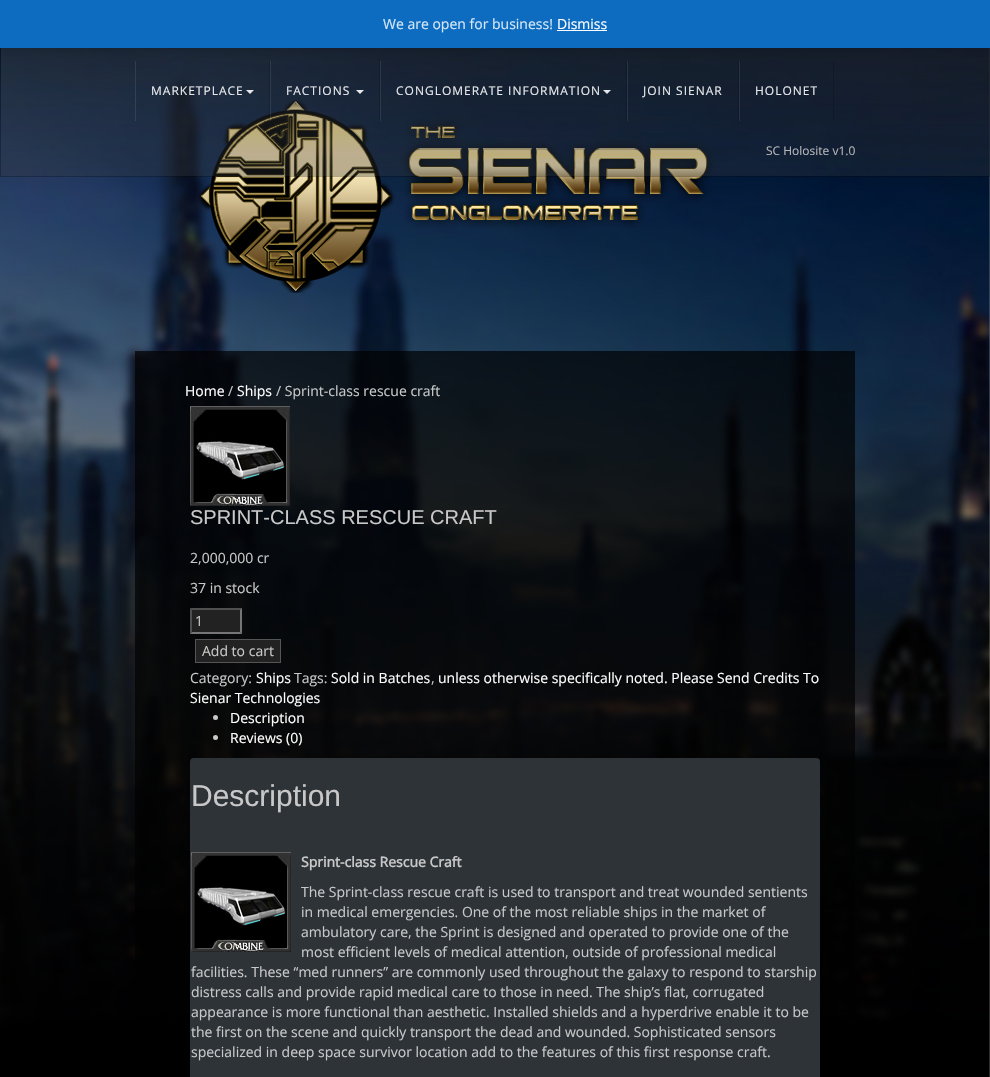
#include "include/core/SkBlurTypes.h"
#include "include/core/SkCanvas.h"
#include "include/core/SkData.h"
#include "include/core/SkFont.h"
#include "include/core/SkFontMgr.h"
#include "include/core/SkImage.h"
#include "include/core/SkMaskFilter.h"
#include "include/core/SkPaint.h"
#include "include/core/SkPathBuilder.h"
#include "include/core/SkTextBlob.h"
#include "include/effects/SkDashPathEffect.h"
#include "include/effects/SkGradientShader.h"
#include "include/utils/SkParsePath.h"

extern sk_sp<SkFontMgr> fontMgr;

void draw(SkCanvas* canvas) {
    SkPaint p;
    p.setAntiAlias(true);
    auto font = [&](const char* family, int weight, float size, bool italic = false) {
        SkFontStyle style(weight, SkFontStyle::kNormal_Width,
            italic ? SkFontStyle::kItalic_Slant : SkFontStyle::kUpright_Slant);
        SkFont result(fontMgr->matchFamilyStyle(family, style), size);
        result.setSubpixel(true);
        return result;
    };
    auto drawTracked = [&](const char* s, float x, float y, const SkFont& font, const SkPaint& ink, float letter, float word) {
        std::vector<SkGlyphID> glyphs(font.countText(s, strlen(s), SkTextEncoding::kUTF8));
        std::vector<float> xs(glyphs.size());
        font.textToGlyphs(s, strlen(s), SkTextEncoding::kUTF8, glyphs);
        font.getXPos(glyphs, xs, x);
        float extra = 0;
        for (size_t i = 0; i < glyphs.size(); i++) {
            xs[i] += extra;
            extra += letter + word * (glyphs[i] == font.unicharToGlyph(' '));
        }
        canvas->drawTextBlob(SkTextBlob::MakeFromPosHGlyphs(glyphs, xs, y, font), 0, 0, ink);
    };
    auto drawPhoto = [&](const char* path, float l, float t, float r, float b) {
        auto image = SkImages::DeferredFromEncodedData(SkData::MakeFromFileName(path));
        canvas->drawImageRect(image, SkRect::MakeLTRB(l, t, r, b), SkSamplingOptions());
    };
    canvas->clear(0xFFFFFFFF);
    drawPhoto("media/1.png", 0, 48, 990, 1077);
    drawPhoto("media/2.png", 198, 99, 714, 293);
    {
        const SkColor colors[] = {0x52484E55, 0x523A3F44, 0x52313539};
        const float stops[] = {0, 0.6f, 1};
        const SkPoint ends[] = {{495, 1}, {495, 176}};
        p.setShader(SkGradientShader::MakeLinear(ends, colors, stops, 3, SkTileMode::kClamp));
        p.setAlpha(255);
    }
    canvas->drawRect(SkRect::MakeLTRB(1, 48, 989, 176), p);
    p.setStyle(SkPaint::kStroke_Style);
    p.setStrokeWidth(1);
    p.setShader(nullptr);
    p.setColor(0x45000000);
    canvas->drawRect(SkRect::MakeLTRB(0.5f, 0.5f, 989.5f, 176.5f), p);
    p.setStyle(SkPaint::kFill_Style);
    {
        const struct { float l, t, r, b; SkColor color; } items[] = {
            {269, 61, 270, 121, 0x2E000000},
            {135, 61, 136, 121, 0x17FFFFFF},
            {379, 61, 380, 121, 0x2E000000},
            {270, 61, 271, 121, 0x17FFFFFF},
            {626, 61, 627, 121, 0x2E000000},
            {380, 61, 381, 121, 0x17FFFFFF},
            {738, 61, 739, 121, 0x2E000000},
            {627, 61, 628, 121, 0x17FFFFFF},
            {833, 61, 834, 121, 0x2E000000},
            {739, 61, 740, 121, 0x17FFFFFF},
        };
        for (auto [l, t, r, b, color] : items) {
            p.setColor(color);
            canvas->drawRect(SkRect::MakeLTRB(l, t, r, b), p);
        }
    }
    p.setColor(0x33000000);
    p.setMaskFilter(SkMaskFilter::MakeBlur(kNormal_SkBlurStyle, 7));
    canvas->drawRect(SkRect::MakeLTRB(0, 1, 990, 49), p);
    p.setMaskFilter(nullptr);
    p.setColor(0xFF0D6CBF);
    canvas->drawRect(SkRect::MakeLTRB(0, 0, 990, 48), p);
    auto font1 = font("Open Sans", 400, 14);
    p.setColor(0xFFD4E7F7);
    canvas->drawString("We are open for business!", 383, 29, font1, p);
    p.setColor(0xFFFFFFFF);
    canvas->drawString("Dismiss", 557, 29, font1, p);
    canvas->drawRect(SkRect::MakeLTRB(557, 30, 607, 31), p);
    auto font2 = font("Open Sans", 400, 12);
    p.setColor(0xFFE8E9EB);
    drawTracked("MARKETPLACE", 151, 95, font2, p, 1, 0);
    p.setColor(0xFFE7E8EB);
    canvas->drawPath(SkPathBuilder().moveTo(246, 90).lineTo(254, 90).lineTo(250, 94).close().detach(), p);
    p.setColor(0xFFE8E9EB);
    drawTracked("FACTIONS", 286, 95, font2, p, 1, 0);
    p.setColor(0xFFE6E8EA);
    canvas->drawPath(SkPathBuilder().moveTo(356, 90).lineTo(364, 90).lineTo(360, 94).close().detach(), p);
    p.setColor(0xFFE8E9EB);
    drawTracked("CONGLOMERATE INFORMATION", 396, 95, font2, p, 1, 0);
    p.setColor(0xFFE6E7E9);
    canvas->drawPath(SkPathBuilder().moveTo(603, 90).lineTo(611, 90).lineTo(607, 94).close().detach(), p);
    p.setColor(0xFFE8E9EB);
    drawTracked("JOIN SIENAR", 643, 95, font2, p, 1, 0);
    drawTracked("HOLONET", 755, 95, font2, p, 1, 0);
    p.setColor(0xFFB6B7B9);
    canvas->drawString("SC Holosite v1.0", 766, 155, font2, p);
    p.setColor(0xB3000000);
    canvas->drawRect(SkRect::MakeLTRB(135, 351, 855, 1013), p);
    p.setColor(0xFFFFFFFF);
    canvas->drawString("Home", 185, 396, font1, p);
    p.setColor(0xFFC8C8C8);
    canvas->drawString("/", 228, 396, font1, p);
    p.setColor(0xFFFFFFFF);
    canvas->drawString("Ships", 237, 396, font1, p);
    p.setColor(0xFFC8C8C8);
    canvas->drawString("/ Sprint-class rescue craft", 276, 396, font1, p);
    drawPhoto("media/3.png", 190, 406, 290, 506);
    auto font3 = font("Liberation Sans", 400, 20);
    canvas->drawString("SPRINT-CLASS RESCUE CRAFT", 190, 524, font3, p);
    canvas->drawString("2,000,000 cr", 190, 563, font1, p);
    canvas->drawString("37 in stock", 190, 593, font1, p);
    p.setColor(0xFF222222);
    canvas->drawRect(SkRect::MakeLTRB(190, 608, 242, 634), p);
    p.setColor(0xFF4F4F4F);
    canvas->drawPath(SkPathBuilder().moveTo(190, 608).lineTo(242, 608).lineTo(240, 610).lineTo(192, 610).close().detach(), p);
    p.setColor(0xFF767676);
    canvas->drawPath(SkPathBuilder().moveTo(242, 608).lineTo(242, 634).lineTo(240, 632).lineTo(240, 610).close().detach(), p);
    canvas->drawPath(SkPathBuilder().moveTo(242, 634).lineTo(190, 634).lineTo(192, 632).lineTo(240, 632).close().detach(), p);
    p.setColor(0xFF4F4F4F);
    canvas->drawPath(SkPathBuilder().moveTo(190, 634).lineTo(190, 608).lineTo(192, 610).lineTo(192, 632).close().detach(), p);
    p.setColor(0xFFC8C8C8);
    canvas->drawString("1", 195, 626, font1, p);
    p.setColor(0xFF222222);
    canvas->drawRect(SkRect::MakeLTRB(195.5f, 639.5f, 280.5f, 662.5f), p);
    p.setStyle(SkPaint::kStroke_Style);
    p.setColor(0xFF555555);
    canvas->drawRect(SkRect::MakeLTRB(195.5f, 639.5f, 280.5f, 662.5f), p);
    p.setStyle(SkPaint::kFill_Style);
    p.setColor(0xFFC8C8C8);
    canvas->drawString("Add to cart", 202, 656, font1, p);
    canvas->drawString("Category:", 190, 683, font1, p);
    p.setColor(0xFFFFFFFF);
    canvas->drawString("Ships", 256, 683, font1, p);
    p.setColor(0xFFC8C8C8);
    canvas->drawString("Tags:", 294, 683, font1, p);
    p.setColor(0xFFFFFFFF);
    canvas->drawString("Sold in Batches", 331, 683, font1, p);
    p.setColor(0xFFC8C8C8);
    canvas->drawString(",", 431, 683, font1, p);
    p.setColor(0xFFFFFFFF);
    canvas->drawString("unless otherwise specifically noted. Please Send Credits To", 438, 683, font1, p);
    canvas->drawString("Sienar Technologies", 190, 703, font1, p);
    p.setColor(0xFFC8C8C8);
    canvas->drawCircle(215.5f, 717.5f, 2.5f, p);
    p.setColor(0xFFFFFFFF);
    canvas->drawString("Description", 230, 723, font1, p);
    p.setColor(0xFFC8C8C8);
    canvas->drawCircle(215.5f, 737.5f, 2.5f, p);
    p.setColor(0xFFFFFFFF);
    canvas->drawString("Reviews (0)", 230, 743, font1, p);
    p.setColor(0xFF2E3338);
    canvas->drawRoundRect(SkRect::MakeLTRB(190, 758, 820, 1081), 4, 4, p);
    auto font4 = font("Liberation Sans", 400, 30);
    p.setColor(0xFFC8C8C8);
    canvas->drawString("Description", 191, 806, font4, p);
    drawPhoto("media/3.png", 191, 852, 291, 952);
    auto font5 = font("Open Sans", 700, 14);
    canvas->drawString("Sprint-class Rescue Craft", 301, 867, font5, p);
    {
        const struct { const char* s; float x, y; } items[] = {
            {"The Sprint-class rescue craft is used to transport and treat wounded sentients", 301, 897},
            {"in medical emergencies. One of the most reliable ships in the market of", 301, 917},
            {"ambulatory care, the Sprint is designed and operated to provide one of the", 301, 937},
            {"most efficient levels of medical attention, outside of professional medical", 301, 957},
            {"facilities. These “med runners” are commonly used throughout the galaxy to respond to starship", 191, 977},
            {"distress calls and provide rapid medical care to those in need. The ship’s flat, corrugated", 191, 997},
            {"appearance is more functional than aesthetic. Installed shields and a hyperdrive enable it to be", 191, 1017},
            {"the first on the scene and quickly transport the dead and wounded. Sophisticated sensors", 191, 1037},
            {"specialized in deep space survivor location add to the features of this first response craft.", 191, 1057},
        };
        for (auto [s, x, y] : items) {
            canvas->drawString(s, x, y, font1, p);
        }
    }
}
